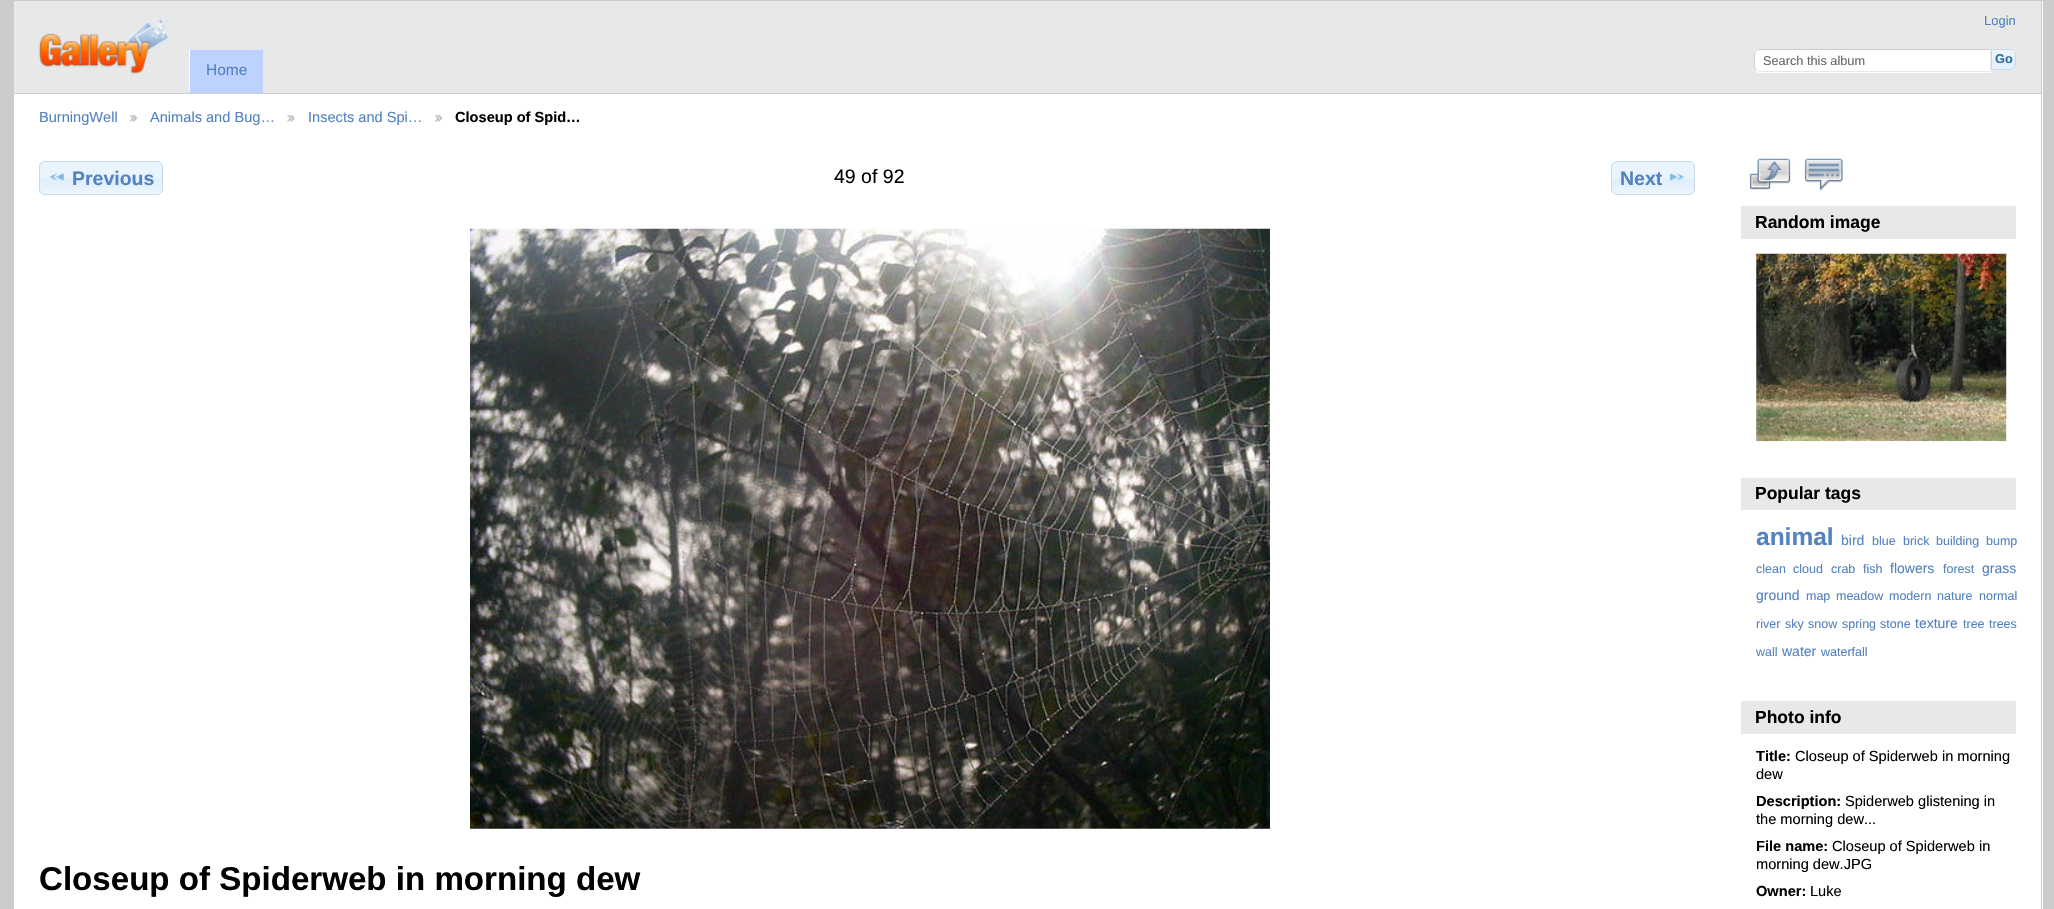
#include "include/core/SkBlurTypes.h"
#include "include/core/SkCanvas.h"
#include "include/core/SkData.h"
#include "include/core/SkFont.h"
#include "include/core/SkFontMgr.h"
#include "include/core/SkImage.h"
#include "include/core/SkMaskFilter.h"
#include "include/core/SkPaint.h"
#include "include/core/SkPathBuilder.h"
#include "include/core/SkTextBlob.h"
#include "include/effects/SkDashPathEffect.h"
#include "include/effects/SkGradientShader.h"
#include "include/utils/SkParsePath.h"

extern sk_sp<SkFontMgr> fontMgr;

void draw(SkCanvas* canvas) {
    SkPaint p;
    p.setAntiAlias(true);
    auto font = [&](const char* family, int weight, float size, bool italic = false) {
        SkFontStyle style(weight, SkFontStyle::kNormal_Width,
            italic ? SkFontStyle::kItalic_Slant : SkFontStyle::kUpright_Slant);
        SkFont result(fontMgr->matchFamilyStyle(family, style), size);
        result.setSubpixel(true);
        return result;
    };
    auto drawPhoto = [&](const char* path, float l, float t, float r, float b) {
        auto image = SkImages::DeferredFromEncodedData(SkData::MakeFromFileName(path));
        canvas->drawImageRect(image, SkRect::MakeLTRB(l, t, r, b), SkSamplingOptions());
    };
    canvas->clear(0xFFCCCCCC);
    {
        const struct { float l, t, r, b; SkColor color; } items[] = {
            {14, 1, 2043, 909, 0xFFFFFFFF},
            {2041, 0, 2042, 909, 0xFFCCCCCC},
            {14, 1, 2041, 93, 0xFFE8E8E8},
            {14, 93, 2041, 94, 0xFFCCCCCC},
        };
        for (auto [l, t, r, b, color] : items) {
            p.setColor(color);
            canvas->drawRect(SkRect::MakeLTRB(l, t, r, b), p);
        }
    }
    drawPhoto("media/1.png", 38, 19, 171, 74);
    auto font1 = font("Liberation Sans", 400, 13);
    p.setColor(0xFF5382BF);
    canvas->drawString("Login", 1984, 25, font1, p);
    p.setColor(0xFFFFFFFF);
    canvas->drawPath(SkPathBuilder().moveTo(1760, 49).lineTo(1991, 49).lineTo(1991, 73).lineTo(1760, 73).cubicTo(1756.5f, 73, 1754, 70.5f, 1754, 67).lineTo(1754, 55).cubicTo(1754, 51.5f, 1756.5f, 49, 1760, 49).close().detach(), p);
    p.setColor(0xFFCCCCCC);
    canvas->drawPath(SkPathBuilder().moveTo(1760, 49).cubicTo(1758, 49, 1757, 50, 1756, 51).cubicTo(1757, 51, 1758, 50, 1760, 50).lineTo(1990, 50).lineTo(1991, 49).close().detach(), p);
    p.setColor(0xFFE8E8E8);
    canvas->drawPath(SkPathBuilder().moveTo(1990, 71).lineTo(1991, 72).lineTo(1991, 49).lineTo(1990, 50).close().detach(), p);
    canvas->drawPath(SkPathBuilder().moveTo(1991, 72).lineTo(1759, 72).lineTo(1756, 70).lineTo(1757, 70).lineTo(1759, 71).lineTo(1990, 71).close().detach(), p);
    p.setColor(0xFFCCCCCC);
    canvas->drawPath(SkPathBuilder().moveTo(1756, 51).cubicTo(1753.5f, 53.5f, 1754, 57, 1754, 60.5f).cubicTo(1754, 63.5f, 1753, 68, 1756, 70.5f).lineTo(1756.5f, 69.5f).lineTo(1755, 67).cubicTo(1754.5f, 65, 1755, 57.5f, 1755, 55).cubicTo(1755, 54, 1755.5f, 52.5f, 1756.5f, 51.5f).close().detach(), p);
    auto font2 = font("Liberation Sans", 400, 12.75f);
    p.setColor(0xFF666666);
    canvas->drawString("Search this album", 1763, 65, font2, p);
    drawPhoto("media/2.png", 1992, 49, 2016, 70);
    p.setStyle(SkPaint::kStroke_Style);
    p.setStrokeWidth(1);
    p.setColor(0xFFC5DBEC);
    canvas->drawPath(SkPathBuilder().moveTo(1991.5f, 49.5f).lineTo(2010, 49.5f).cubicTo(2013, 49.5f, 2015.5f, 52, 2015.5f, 55).lineTo(2015.5f, 64).cubicTo(2015.5f, 67, 2013, 69.5f, 2010, 69.5f).lineTo(1991.5f, 69.5f).close().detach(), p);
    auto font3 = font("Liberation Sans", 700, 12.75f);
    p.setStyle(SkPaint::kFill_Style);
    p.setColor(0xFF2E6E9E);
    canvas->drawString("Go", 1995, 63, font3, p);
    p.setColor(0xFFBDD2FF);
    canvas->drawRect(SkRect::MakeLTRB(189, 49, 263, 93), p);
    p.setColor(0xFFDEE9FF);
    canvas->drawPath(SkPathBuilder().moveTo(189, 49).lineTo(262, 49).lineTo(262, 50).lineTo(190, 50).close().detach(), p);
    p.setColor(0xFFFFFFFF);
    canvas->drawPath(SkPathBuilder().moveTo(189, 92).lineTo(189, 49).lineTo(190, 50).lineTo(190, 92).close().detach(), p);
    auto font4 = font("Liberation Sans", 400, 15.5f);
    p.setColor(0xFF5382BF);
    canvas->drawString("Home", 206, 75, font4, p);
    auto font5 = font("Liberation Sans", 400, 14.6f);
    canvas->drawString("BurningWell", 39, 122, font5, p);
    drawPhoto("media/3.png", 130, 114, 138, 122);
    canvas->drawString("Animals and Bug…", 150, 122, font5, p);
    drawPhoto("media/4.png", 287, 115, 295, 122);
    canvas->drawString("Insects and Spi…", 308, 122, font5, p);
    drawPhoto("media/3.png", 435, 114, 443, 122);
    auto font6 = font("Liberation Sans", 700, 14.6f);
    p.setColor(0xFF000000);
    canvas->drawString("Closeup of Spid…", 455, 122, font6, p);
    drawPhoto("media/5.png", 39, 161, 162, 195);
    p.setStyle(SkPaint::kStroke_Style);
    p.setColor(0xFFC5DBEC);
    canvas->drawRoundRect(SkRect::MakeLTRB(39.5f, 161.5f, 162.5f, 194.5f), 5.5f, 5.5f, p);
    drawPhoto("media/6.png", 49, 173, 64, 181);
    auto font7 = font("Liberation Sans", 700, 19.5f);
    p.setStyle(SkPaint::kFill_Style);
    p.setColor(0xFF5382BF);
    canvas->drawString("Previous", 72, 185, font7, p);
    auto font8 = font("Liberation Sans", 400, 19.5f);
    p.setColor(0xFF000000);
    canvas->drawString("49 of 92", 834, 183, font8, p);
    drawPhoto("media/7.png", 1611, 161, 1695, 195);
    p.setStyle(SkPaint::kStroke_Style);
    p.setColor(0xFFC5DBEC);
    canvas->drawRoundRect(SkRect::MakeLTRB(1611.5f, 161.5f, 1694.5f, 194.5f), 5.5f, 5.5f, p);
    p.setStyle(SkPaint::kFill_Style);
    p.setColor(0xFF5382BF);
    canvas->drawString("Next", 1620, 185, font7, p);
    drawPhoto("media/8.png", 1669, 173, 1684, 181);
    drawPhoto("media/9.png", 470, 228, 1270, 829);
    auto font9 = font("Liberation Sans", 700, 33.1f);
    p.setColor(0xFF000000);
    canvas->drawString("Closeup of Spiderweb in morning dew", 39, 890, font9, p);
    drawPhoto("media/10.png", 1749, 158, 1791, 190);
    drawPhoto("media/11.png", 1804, 158, 1843, 191);
    p.setColor(0xFFE8E8E8);
    canvas->drawRect(SkRect::MakeLTRB(1741, 206, 2016, 239), p);
    auto font10 = font("Liberation Sans", 700, 17.5f);
    p.setColor(0xFF000000);
    canvas->drawString("Random image", 1755, 228, font10, p);
    drawPhoto("media/12.png", 1756, 253, 2007, 442);
    p.setColor(0xFFE8E8E8);
    canvas->drawRect(SkRect::MakeLTRB(1741, 478, 2016, 510), p);
    p.setColor(0xFF000000);
    canvas->drawString("Popular tags", 1755, 499, font10, p);
    auto font11 = font("Liberation Sans", 700, 24.5f);
    p.setColor(0xFF5382BF);
    canvas->drawString("animal", 1756, 545, font11, p);
    auto font12 = font("Liberation Sans", 400, 14);
    canvas->drawString("bird", 1841, 545, font12, p);
    auto font13 = font("Liberation Sans", 400, 12.5f);
    {
        const struct { const char* s; float x, y; } items[] = {
            {"blue", 1872, 545},
            {"brick", 1903, 545},
            {"building", 1936, 545},
            {"bump", 1986, 545},
            {"clean", 1756, 573},
            {"cloud", 1793, 573},
            {"crab", 1831, 573},
            {"fish", 1863, 573},
        };
        for (auto [s, x, y] : items) {
            canvas->drawString(s, x, y, font13, p);
        }
    }
    canvas->drawString("flowers", 1890, 573, font12, p);
    canvas->drawString("forest", 1943, 573, font13, p);
    canvas->drawString("grass", 1982, 573, font12, p);
    canvas->drawString("ground", 1756, 600, font12, p);
    {
        const struct { const char* s; float x, y; } items[] = {
            {"map", 1806, 600},
            {"meadow", 1836, 600},
            {"modern", 1889, 600},
            {"nature", 1937, 600},
            {"normal", 1979, 600},
            {"river", 1756, 628},
            {"sky", 1785, 628},
            {"snow", 1808, 628},
            {"spring", 1842, 628},
            {"stone", 1880, 628},
        };
        for (auto [s, x, y] : items) {
            canvas->drawString(s, x, y, font13, p);
        }
    }
    canvas->drawString("texture", 1915, 628, font12, p);
    {
        const struct { const char* s; float x, y; } items[] = {
            {"tree", 1963, 628},
            {"trees", 1989, 628},
            {"wall", 1756, 656},
        };
        for (auto [s, x, y] : items) {
            canvas->drawString(s, x, y, font13, p);
        }
    }
    canvas->drawString("water", 1782, 656, font12, p);
    canvas->drawString("waterfall", 1821, 656, font13, p);
    p.setColor(0xFFE8E8E8);
    canvas->drawRect(SkRect::MakeLTRB(1741, 701, 2016, 734), p);
    p.setColor(0xFF000000);
    canvas->drawString("Photo info", 1755, 723, font10, p);
    canvas->drawString("Title:", 1756, 761, font6, p);
    canvas->drawString("Closeup of Spiderweb in morning", 1795, 761, font5, p);
    canvas->drawString("dew", 1756, 779, font5, p);
    canvas->drawString("Description:", 1756, 806, font6, p);
    canvas->drawString("Spiderweb glistening in", 1845, 806, font5, p);
    canvas->drawString("the morning dew...", 1756, 824, font5, p);
    canvas->drawString("File name:", 1756, 851, font6, p);
    canvas->drawString("Closeup of Spiderweb in", 1832, 851, font5, p);
    canvas->drawString("morning dew.JPG", 1756, 869, font5, p);
    canvas->drawString("Owner:", 1756, 896, font6, p);
    canvas->drawString("Luke", 1810, 896, font5, p);
}
